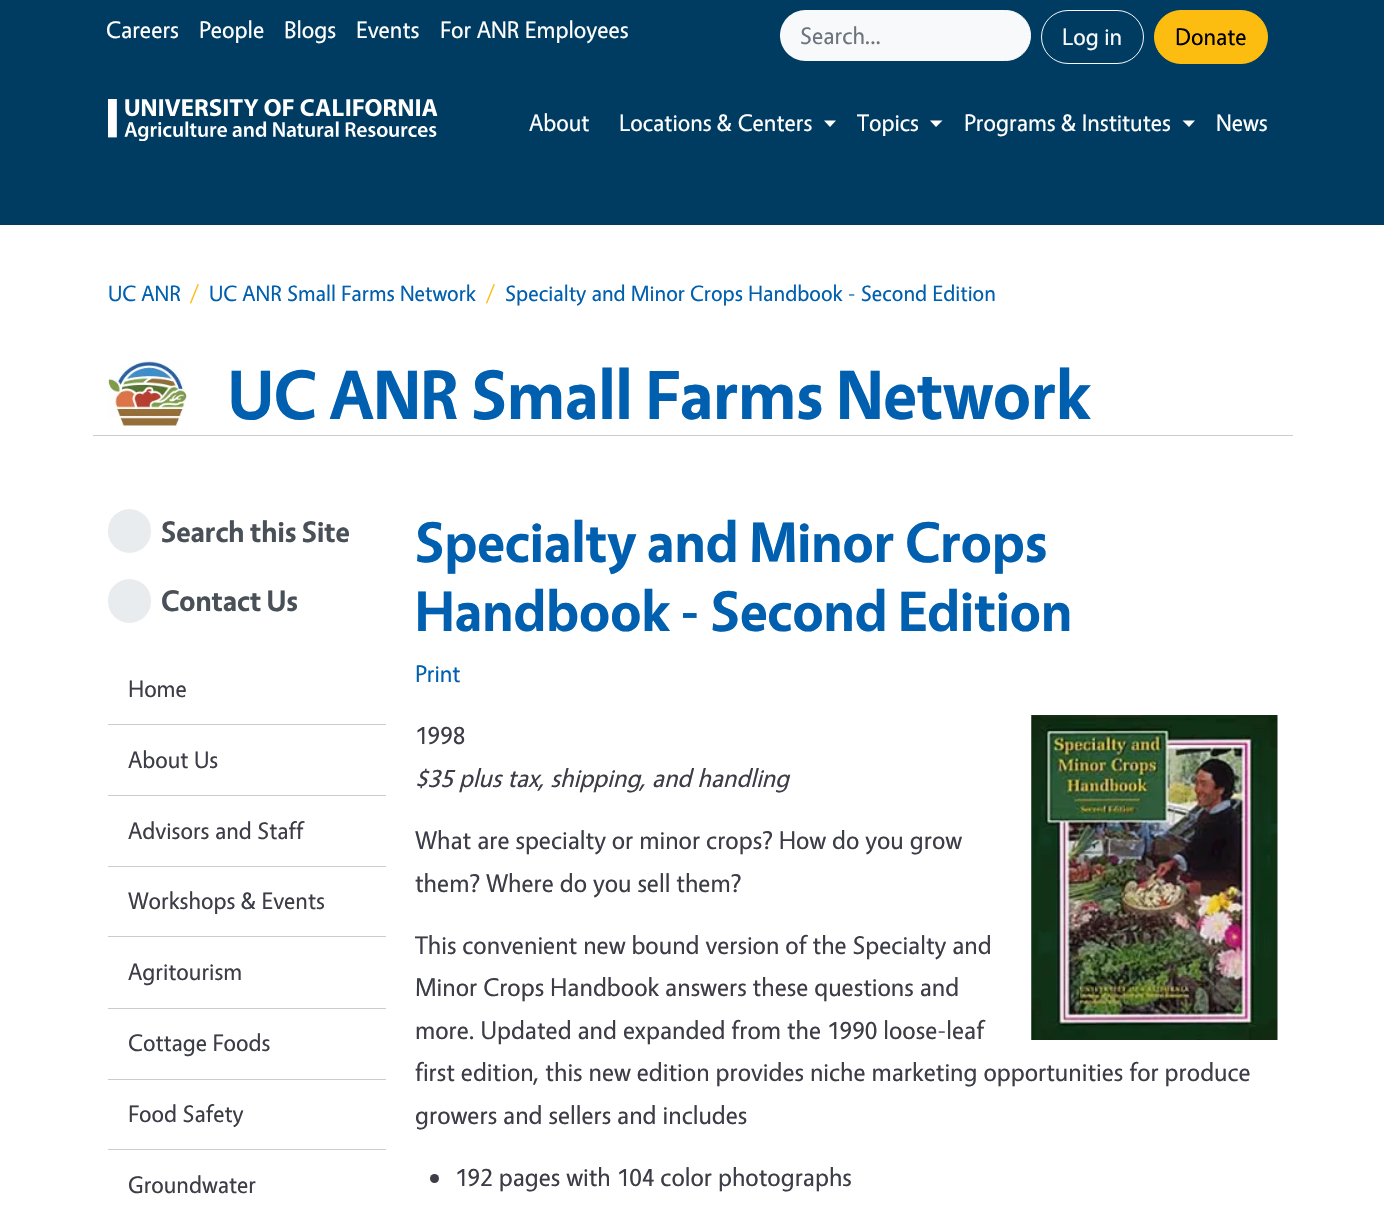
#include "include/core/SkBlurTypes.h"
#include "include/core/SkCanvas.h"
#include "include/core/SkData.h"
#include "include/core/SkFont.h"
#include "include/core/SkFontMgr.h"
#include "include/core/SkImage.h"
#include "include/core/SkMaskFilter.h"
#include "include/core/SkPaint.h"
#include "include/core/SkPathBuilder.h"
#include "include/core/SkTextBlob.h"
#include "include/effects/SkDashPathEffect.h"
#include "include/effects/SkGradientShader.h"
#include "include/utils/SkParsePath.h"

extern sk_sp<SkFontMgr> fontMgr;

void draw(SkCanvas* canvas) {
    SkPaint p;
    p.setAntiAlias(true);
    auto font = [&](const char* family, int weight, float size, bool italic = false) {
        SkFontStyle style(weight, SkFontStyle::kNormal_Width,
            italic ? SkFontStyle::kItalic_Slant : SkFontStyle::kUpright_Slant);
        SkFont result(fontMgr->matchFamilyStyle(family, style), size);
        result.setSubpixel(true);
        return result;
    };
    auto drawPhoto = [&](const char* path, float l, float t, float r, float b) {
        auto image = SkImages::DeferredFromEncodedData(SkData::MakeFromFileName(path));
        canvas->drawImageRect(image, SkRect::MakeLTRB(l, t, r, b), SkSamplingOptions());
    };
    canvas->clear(0xFF003C61);
    auto font1 = font("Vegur", 400, 24);
    p.setColor(0xFFFFFFFF);
    {
        const struct { const char* s; float x, y; } items[] = {
            {"Careers", 106, 38},
            {"People", 199, 38},
            {"Blogs", 284, 38},
            {"Events", 356, 38},
            {"For ANR Employees", 440, 38},
        };
        for (auto [s, x, y] : items) {
            canvas->drawString(s, x, y, font1, p);
        }
    }
    p.setColor(0xFFF8F9FA);
    canvas->drawPath(SkPathBuilder().moveTo(805.5f, 10).lineTo(1000, 10).lineTo(1000, 61).lineTo(805.5f, 61).cubicTo(791.5f, 61, 780, 49.5f, 780, 35.5f).cubicTo(780, 21.5f, 791.5f, 10, 805.5f, 10).close().detach(), p);
    p.setColor(0xFF6C757D);
    canvas->drawString("Search...", 800, 44, font1, p);
    p.setColor(0xFFF8F9FA);
    canvas->drawPath(SkPathBuilder().moveTo(999.5f, 10.5f).lineTo(1005.5f, 10.5f).cubicTo(1019.5f, 10.5f, 1030.5f, 21.5f, 1030.5f, 35.5f).cubicTo(1030.5f, 49.5f, 1019.5f, 60.5f, 1005.5f, 60.5f).lineTo(999.5f, 60.5f).close().detach(), p);
    p.setStyle(SkPaint::kStroke_Style);
    p.setStrokeWidth(1);
    canvas->drawPath(SkPathBuilder().moveTo(999.5f, 10.5f).lineTo(1005.5f, 10.5f).cubicTo(1019.5f, 10.5f, 1030.5f, 21.5f, 1030.5f, 35.5f).cubicTo(1030.5f, 49.5f, 1019.5f, 60.5f, 1005.5f, 60.5f).lineTo(999.5f, 60.5f).close().detach(), p);
    canvas->drawRoundRect(SkRect::MakeLTRB(1041.5f, 10.5f, 1143.5f, 63.5f), 26.5f, 26.5f, p);
    p.setStyle(SkPaint::kFill_Style);
    canvas->drawString("Log in", 1062, 45, font1, p);
    p.setColor(0xFFFDBD10);
    canvas->drawRoundRect(SkRect::MakeLTRB(1154.5f, 10.5f, 1267.5f, 63.5f), 26.5f, 26.5f, p);
    p.setStyle(SkPaint::kStroke_Style);
    canvas->drawRoundRect(SkRect::MakeLTRB(1154.5f, 10.5f, 1267.5f, 63.5f), 26.5f, 26.5f, p);
    p.setStyle(SkPaint::kFill_Style);
    p.setColor(0xFF000000);
    canvas->drawString("Donate", 1175, 45, font1, p);
    drawPhoto("media/1.png", 108, 99, 438, 141);
    p.setColor(0xFFFFFFFF);
    canvas->drawString("About", 529, 131, font1, p);
    canvas->drawString("Locations & Centers", 619, 131, font1, p);
    canvas->drawPath(SkPathBuilder().moveTo(824, 120.5f).lineTo(836, 120.5f).lineTo(830, 127).close().detach(), p);
    canvas->drawString("Topics", 857, 131, font1, p);
    canvas->drawPath(SkPathBuilder().moveTo(930, 120.5f).lineTo(942.5f, 120.5f).lineTo(936, 127).close().detach(), p);
    canvas->drawString("Programs & Institutes", 964, 131, font1, p);
    canvas->drawPath(SkPathBuilder().moveTo(1182.5f, 120.5f).lineTo(1195, 120.5f).lineTo(1189, 127).close().detach(), p);
    canvas->drawString("News", 1216, 131, font1, p);
    canvas->drawRect(SkRect::MakeLTRB(0, 225, 1384, 1206), p);
    auto font2 = font("Vegur", 400, 22.3f);
    p.setColor(0xFF005FAE);
    canvas->drawString("UC ANR", 108, 301, font2, p);
    p.setColor(0xFFFDBD10);
    canvas->drawString("/", 190, 301, font2, p);
    p.setColor(0xFF005FAE);
    canvas->drawString("UC ANR Small Farms Network", 209, 301, font2, p);
    p.setColor(0xFFFDBD10);
    canvas->drawString("/", 486, 301, font2, p);
    p.setColor(0xFF005FAE);
    canvas->drawString("Specialty and Minor Crops Handbook - Second Edition", 505, 301, font2, p);
    p.setColor(0xFFCCCCCC);
    canvas->drawRect(SkRect::MakeLTRB(93, 435, 1293, 436), p);
    drawPhoto("media/2.png", 107, 360, 188, 431);
    auto font3 = font("Vegur", 700, 70);
    p.setColor(0xFF005FAE);
    canvas->drawString("UC ANR Small Farms Network", 228, 419, font3, p);
    p.setColor(0xFFE9ECEF);
    canvas->drawRoundRect(SkRect::MakeLTRB(108, 509, 151, 553), 21.5f, 21.5f, p);
    auto font4 = font("Vegur", 700, 29.75f);
    p.setColor(0xFF495057);
    canvas->drawString("Search this Site", 161, 542, font4, p);
    p.setColor(0xFFE9ECEF);
    canvas->drawRoundRect(SkRect::MakeLTRB(108, 579, 151, 623), 21.5f, 21.5f, p);
    p.setColor(0xFF495057);
    canvas->drawString("Contact Us", 161, 611, font4, p);
    p.setColor(0xFFCCCCCC);
    canvas->drawRect(SkRect::MakeLTRB(108, 724, 386, 725), p);
    p.setColor(0xFF3D3D47);
    canvas->drawString("Home", 128, 697, font1, p);
    p.setColor(0xFFCCCCCC);
    canvas->drawRect(SkRect::MakeLTRB(108, 795, 386, 796), p);
    p.setColor(0xFF3D3D47);
    canvas->drawString("About Us", 128, 768, font1, p);
    p.setColor(0xFFCCCCCC);
    canvas->drawRect(SkRect::MakeLTRB(108, 866, 386, 867), p);
    p.setColor(0xFF3D3D47);
    canvas->drawString("Advisors and Staff", 128, 839, font1, p);
    p.setColor(0xFFCCCCCC);
    canvas->drawRect(SkRect::MakeLTRB(108, 936, 386, 937), p);
    p.setColor(0xFF3D3D47);
    canvas->drawString("Workshops & Events", 128, 909, font1, p);
    p.setColor(0xFFCCCCCC);
    canvas->drawRect(SkRect::MakeLTRB(108, 1008, 386, 1009), p);
    p.setColor(0xFF3D3D47);
    canvas->drawString("Agritourism", 128, 980, font1, p);
    p.setColor(0xFFCCCCCC);
    canvas->drawRect(SkRect::MakeLTRB(108, 1079, 386, 1080), p);
    p.setColor(0xFF3D3D47);
    canvas->drawString("Cottage Foods", 128, 1051, font1, p);
    p.setColor(0xFFCCCCCC);
    canvas->drawRect(SkRect::MakeLTRB(108, 1149, 386, 1150), p);
    p.setColor(0xFF3D3D47);
    canvas->drawString("Food Safety", 128, 1122, font1, p);
    canvas->drawString("Groundwater", 128, 1193, font1, p);
    auto font5 = font("Vegur", 700, 57.5f);
    p.setColor(0xFF005FAE);
    canvas->drawString("Specialty and Minor Crops", 415, 562, font5, p);
    canvas->drawString("Handbook - Second Edition", 415, 631, font5, p);
    canvas->drawString("Print", 415, 682, font1, p);
    auto font6 = font("Vegur", 400, 25.7f);
    p.setColor(0xFF3D3D47);
    canvas->drawString("1998", 415, 744, font6, p);
    drawPhoto("media/3.png", 1031, 715, 1278, 1040);
    auto font7 = font("Vegur", 400, 25.7f, true);
    canvas->drawString("$35 plus tax, shipping, and handling", 415, 787, font7, p);
    {
        const struct { const char* s; float x, y; } items[] = {
            {"What are specialty or minor crops? How do you grow", 415, 849},
            {"them? Where do you sell them?", 415, 892},
            {"This convenient new bound version of the Specialty and", 415, 954},
            {"Minor Crops Handbook answers these questions and", 415, 996},
            {"more. Updated and expanded from the 1990 loose-leaf", 415, 1039},
            {"first edition, this new edition provides niche marketing opportunities for produce", 415, 1081},
            {"growers and sellers and includes", 415, 1124},
        };
        for (auto [s, x, y] : items) {
            canvas->drawString(s, x, y, font6, p);
        }
    }
    canvas->drawCircle(434.5f, 1178.5f, 4.5f, p);
    canvas->drawString("192 pages with 104 color photographs", 455, 1186, font6, p);
}
